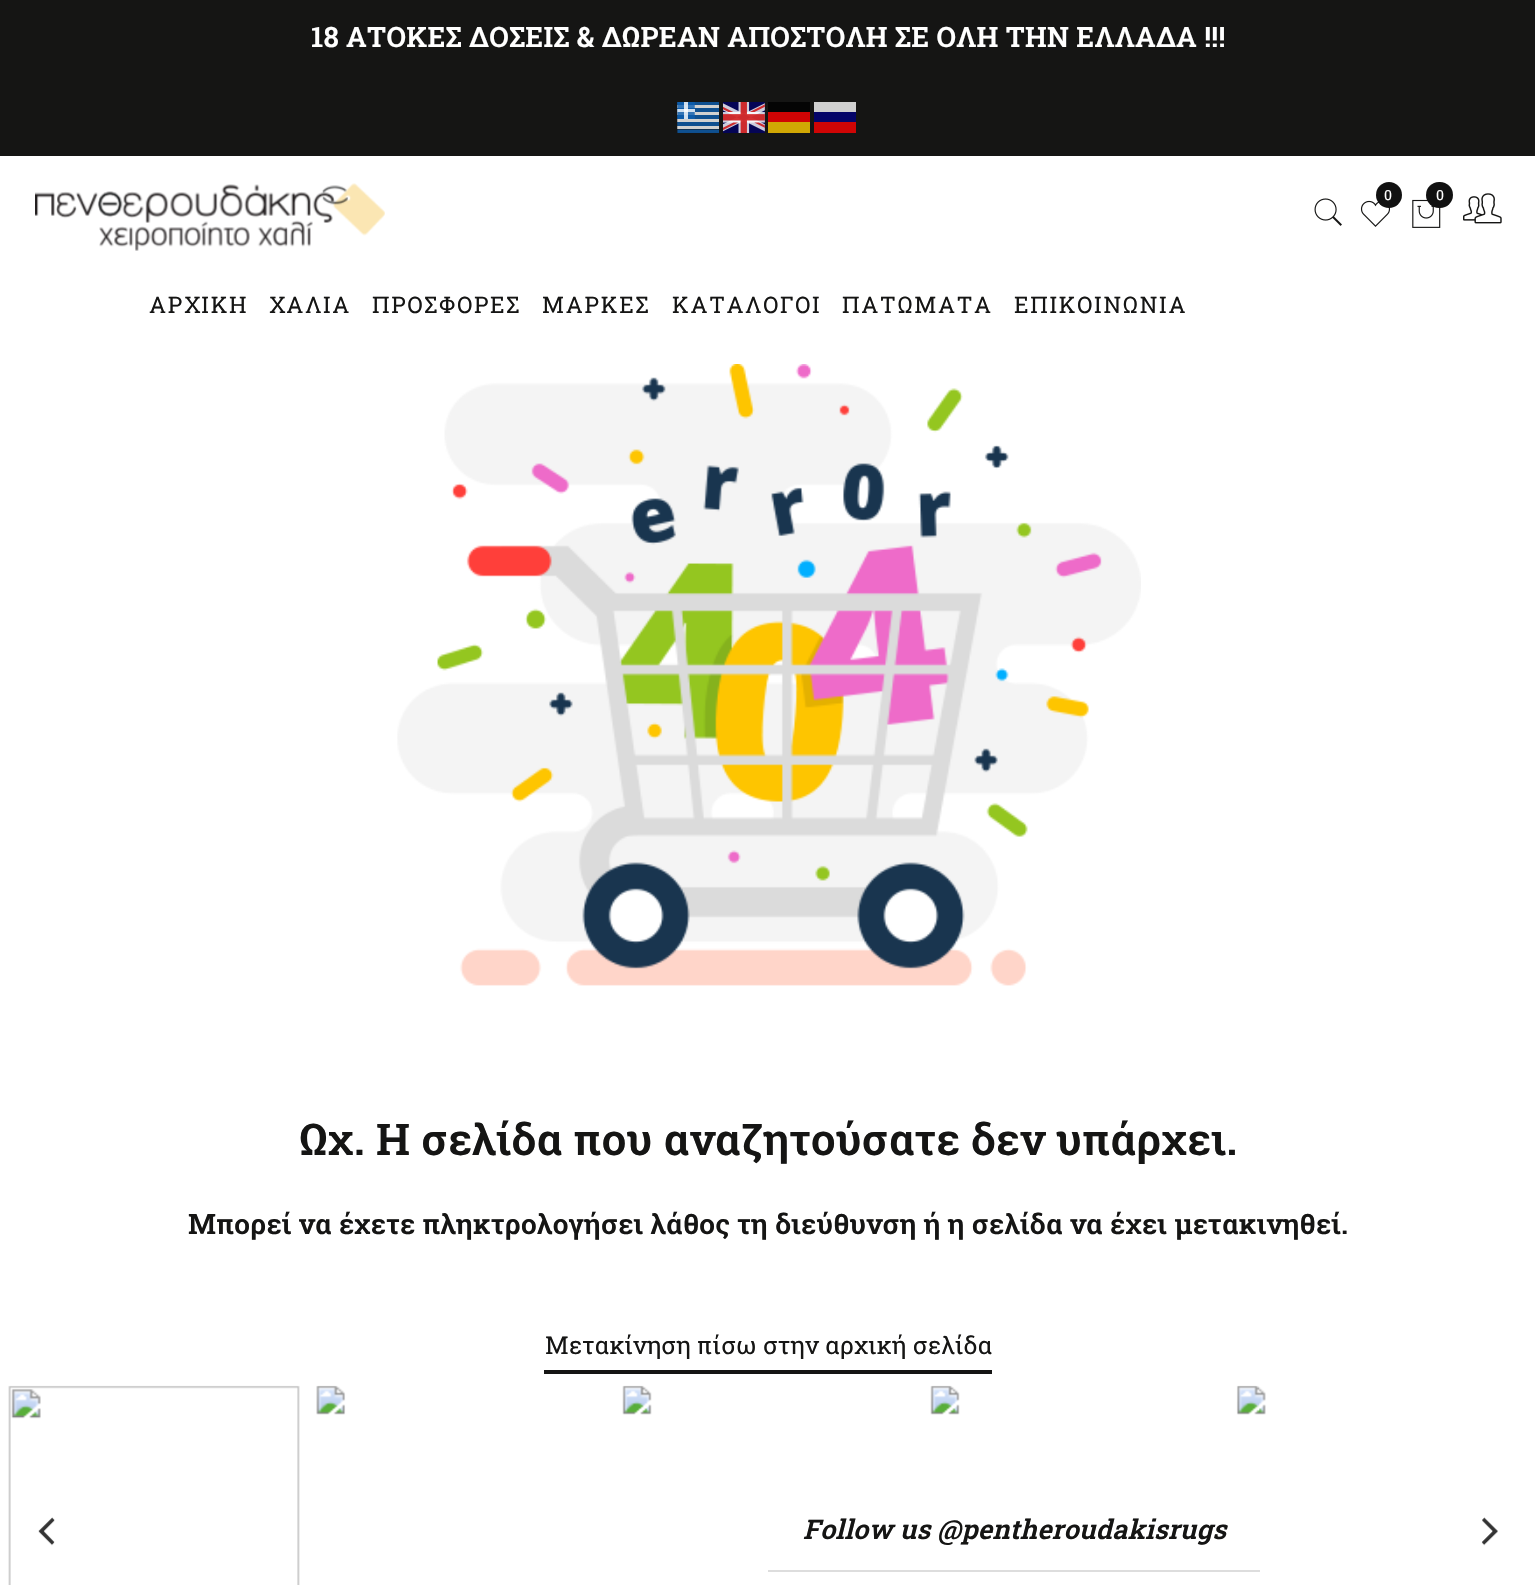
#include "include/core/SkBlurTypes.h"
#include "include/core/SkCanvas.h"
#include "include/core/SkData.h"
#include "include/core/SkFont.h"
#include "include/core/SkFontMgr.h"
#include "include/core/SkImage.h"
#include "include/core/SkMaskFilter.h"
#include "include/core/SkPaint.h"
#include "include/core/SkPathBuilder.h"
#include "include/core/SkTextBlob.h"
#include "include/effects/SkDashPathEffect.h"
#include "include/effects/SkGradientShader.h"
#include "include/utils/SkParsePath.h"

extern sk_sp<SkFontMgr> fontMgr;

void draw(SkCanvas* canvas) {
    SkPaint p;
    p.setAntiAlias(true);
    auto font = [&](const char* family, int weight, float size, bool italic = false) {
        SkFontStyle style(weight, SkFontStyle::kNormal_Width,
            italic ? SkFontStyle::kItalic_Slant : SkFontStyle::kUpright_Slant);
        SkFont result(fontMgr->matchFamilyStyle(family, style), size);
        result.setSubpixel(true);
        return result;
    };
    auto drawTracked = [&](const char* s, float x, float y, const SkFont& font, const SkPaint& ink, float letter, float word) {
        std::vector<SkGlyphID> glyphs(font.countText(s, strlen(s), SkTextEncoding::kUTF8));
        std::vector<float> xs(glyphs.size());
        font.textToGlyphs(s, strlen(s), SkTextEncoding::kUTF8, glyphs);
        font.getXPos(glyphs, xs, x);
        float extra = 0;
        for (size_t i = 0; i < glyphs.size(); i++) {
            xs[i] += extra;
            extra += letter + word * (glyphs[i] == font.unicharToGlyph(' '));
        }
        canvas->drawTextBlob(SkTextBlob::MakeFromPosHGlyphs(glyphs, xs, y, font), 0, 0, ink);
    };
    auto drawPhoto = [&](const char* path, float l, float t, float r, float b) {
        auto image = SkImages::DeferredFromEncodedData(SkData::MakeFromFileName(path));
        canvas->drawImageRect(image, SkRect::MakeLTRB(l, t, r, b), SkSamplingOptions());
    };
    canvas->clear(0xFFFFFFFF);
    p.setColor(0xFF151514);
    canvas->drawRect(SkRect::MakeLTRB(0, 0, 1535, 156), p);
    auto font1 = font("Roboto Slab", 600, 28);
    p.setColor(0xFFFFFFFF);
    drawTracked("18 ΑΤΟΚΕΣ ΔΟΣΕΙΣ & ΔΩΡΕΑΝ ΑΠΟΣΤΟΛΗ ΣΕ ΟΛΗ ΤΗΝ ΕΛΛΑΔΑ !!!", 311, 47, font1, p, 0.25f, 0);
    drawPhoto("media/1.png", 677, 102, 719, 133);
    drawPhoto("media/2.png", 723, 102, 765, 133);
    {
        const struct { float l, t, r, b; SkColor color; } items[] = {
            {768, 102, 810, 112, 0xFF040404},
            {814, 102, 856, 112, 0xFFD0D0D0},
            {768, 112, 810, 122, 0xFFD00404},
            {814, 112, 856, 122, 0xFF050569},
            {768, 122, 810, 133, 0xFFD0A704},
            {814, 122, 856, 133, 0xFFCF0505},
        };
        for (auto [l, t, r, b, color] : items) {
            p.setColor(color);
            canvas->drawRect(SkRect::MakeLTRB(l, t, r, b), p);
        }
    }
    drawPhoto("media/3.png", 35, 183, 385, 251);
    drawPhoto("media/4.png", 1314, 198, 1342, 226);
    drawPhoto("media/5.png", 1360, 200, 1390, 227);
    p.setColor(0xFF111111);
    canvas->drawCircle(1389, 195, 13, p);
    auto font2 = font("Roboto Slab", 400, 14);
    p.setColor(0xFFFFFFFF);
    drawTracked("0", 1384, 200, font2, p, 0.25f, 0);
    drawPhoto("media/6.png", 1412, 199, 1441, 228);
    p.setColor(0xFF111111);
    canvas->drawRoundRect(SkRect::MakeLTRB(1426, 182, 1453, 208), 13, 13, p);
    p.setColor(0xFFFFFFFF);
    drawTracked("0", 1436, 200, font2, p, 0.25f, 0);
    drawPhoto("media/7.png", 1463, 193, 1502, 224);
    auto font3 = font("Roboto Slab", 400, 22.75f);
    p.setColor(0xFF151514);
    {
        const struct { const char* s; float x, y; } items[] = {
            {"ΑΡΧΙΚΗ", 149, 313},
            {"ΧΑΛΙΑ", 269, 313},
            {"ΠΡΟΣΦΟΡΕΣ", 372, 313},
            {"ΜΑΡΚΕΣ", 542, 313},
            {"ΚΑΤΑΛΟΓΟΙ", 672, 313},
            {"ΠΑΤΩΜΑΤΑ", 842, 313},
            {"ΕΠΙΚΟΙΝΩΝΙΑ", 1014, 313},
        };
        for (auto [s, x, y] : items) {
            drawTracked(s, x, y, font3, p, 1.75f, 0);
        }
    }
    drawPhoto("media/8.png", 397, 364, 1141, 986);
    auto font4 = font("Roboto Slab", 600, 43.75f);
    drawTracked("Ωχ. Η σελίδα που αναζητούσατε δεν υπάρχει.", 299, 1155, font4, p, 0.25f, 0);
    drawTracked("Μπορεί να έχετε πληκτρολογήσει λάθος τη διεύθυνση ή η σελίδα να έχει μετακινηθεί.", 188, 1234, font1, p, 0.25f, 0);
    auto font5 = font("Roboto Slab", 400, 24.5f);
    drawTracked("Μετακίνηση πίσω στην αρχική σελίδα", 545, 1354, font5, p, 0.25f, 0);
    canvas->drawRect(SkRect::MakeLTRB(544, 1370, 992, 1374), p);
    drawPhoto("media/9.png", 8, 1385, 1498, 1585);
    p.setColor(0xFFDDDDDD);
    canvas->drawRect(SkRect::MakeLTRB(768, 1570, 1260, 1572), p);
    auto font6 = font("Roboto Slab", 600, 27, true);
    p.setColor(0xFF151514);
    drawTracked("Follow us @pentheroudakisrugs", 803, 1539, font6, p, 0.25f, 0);
}
